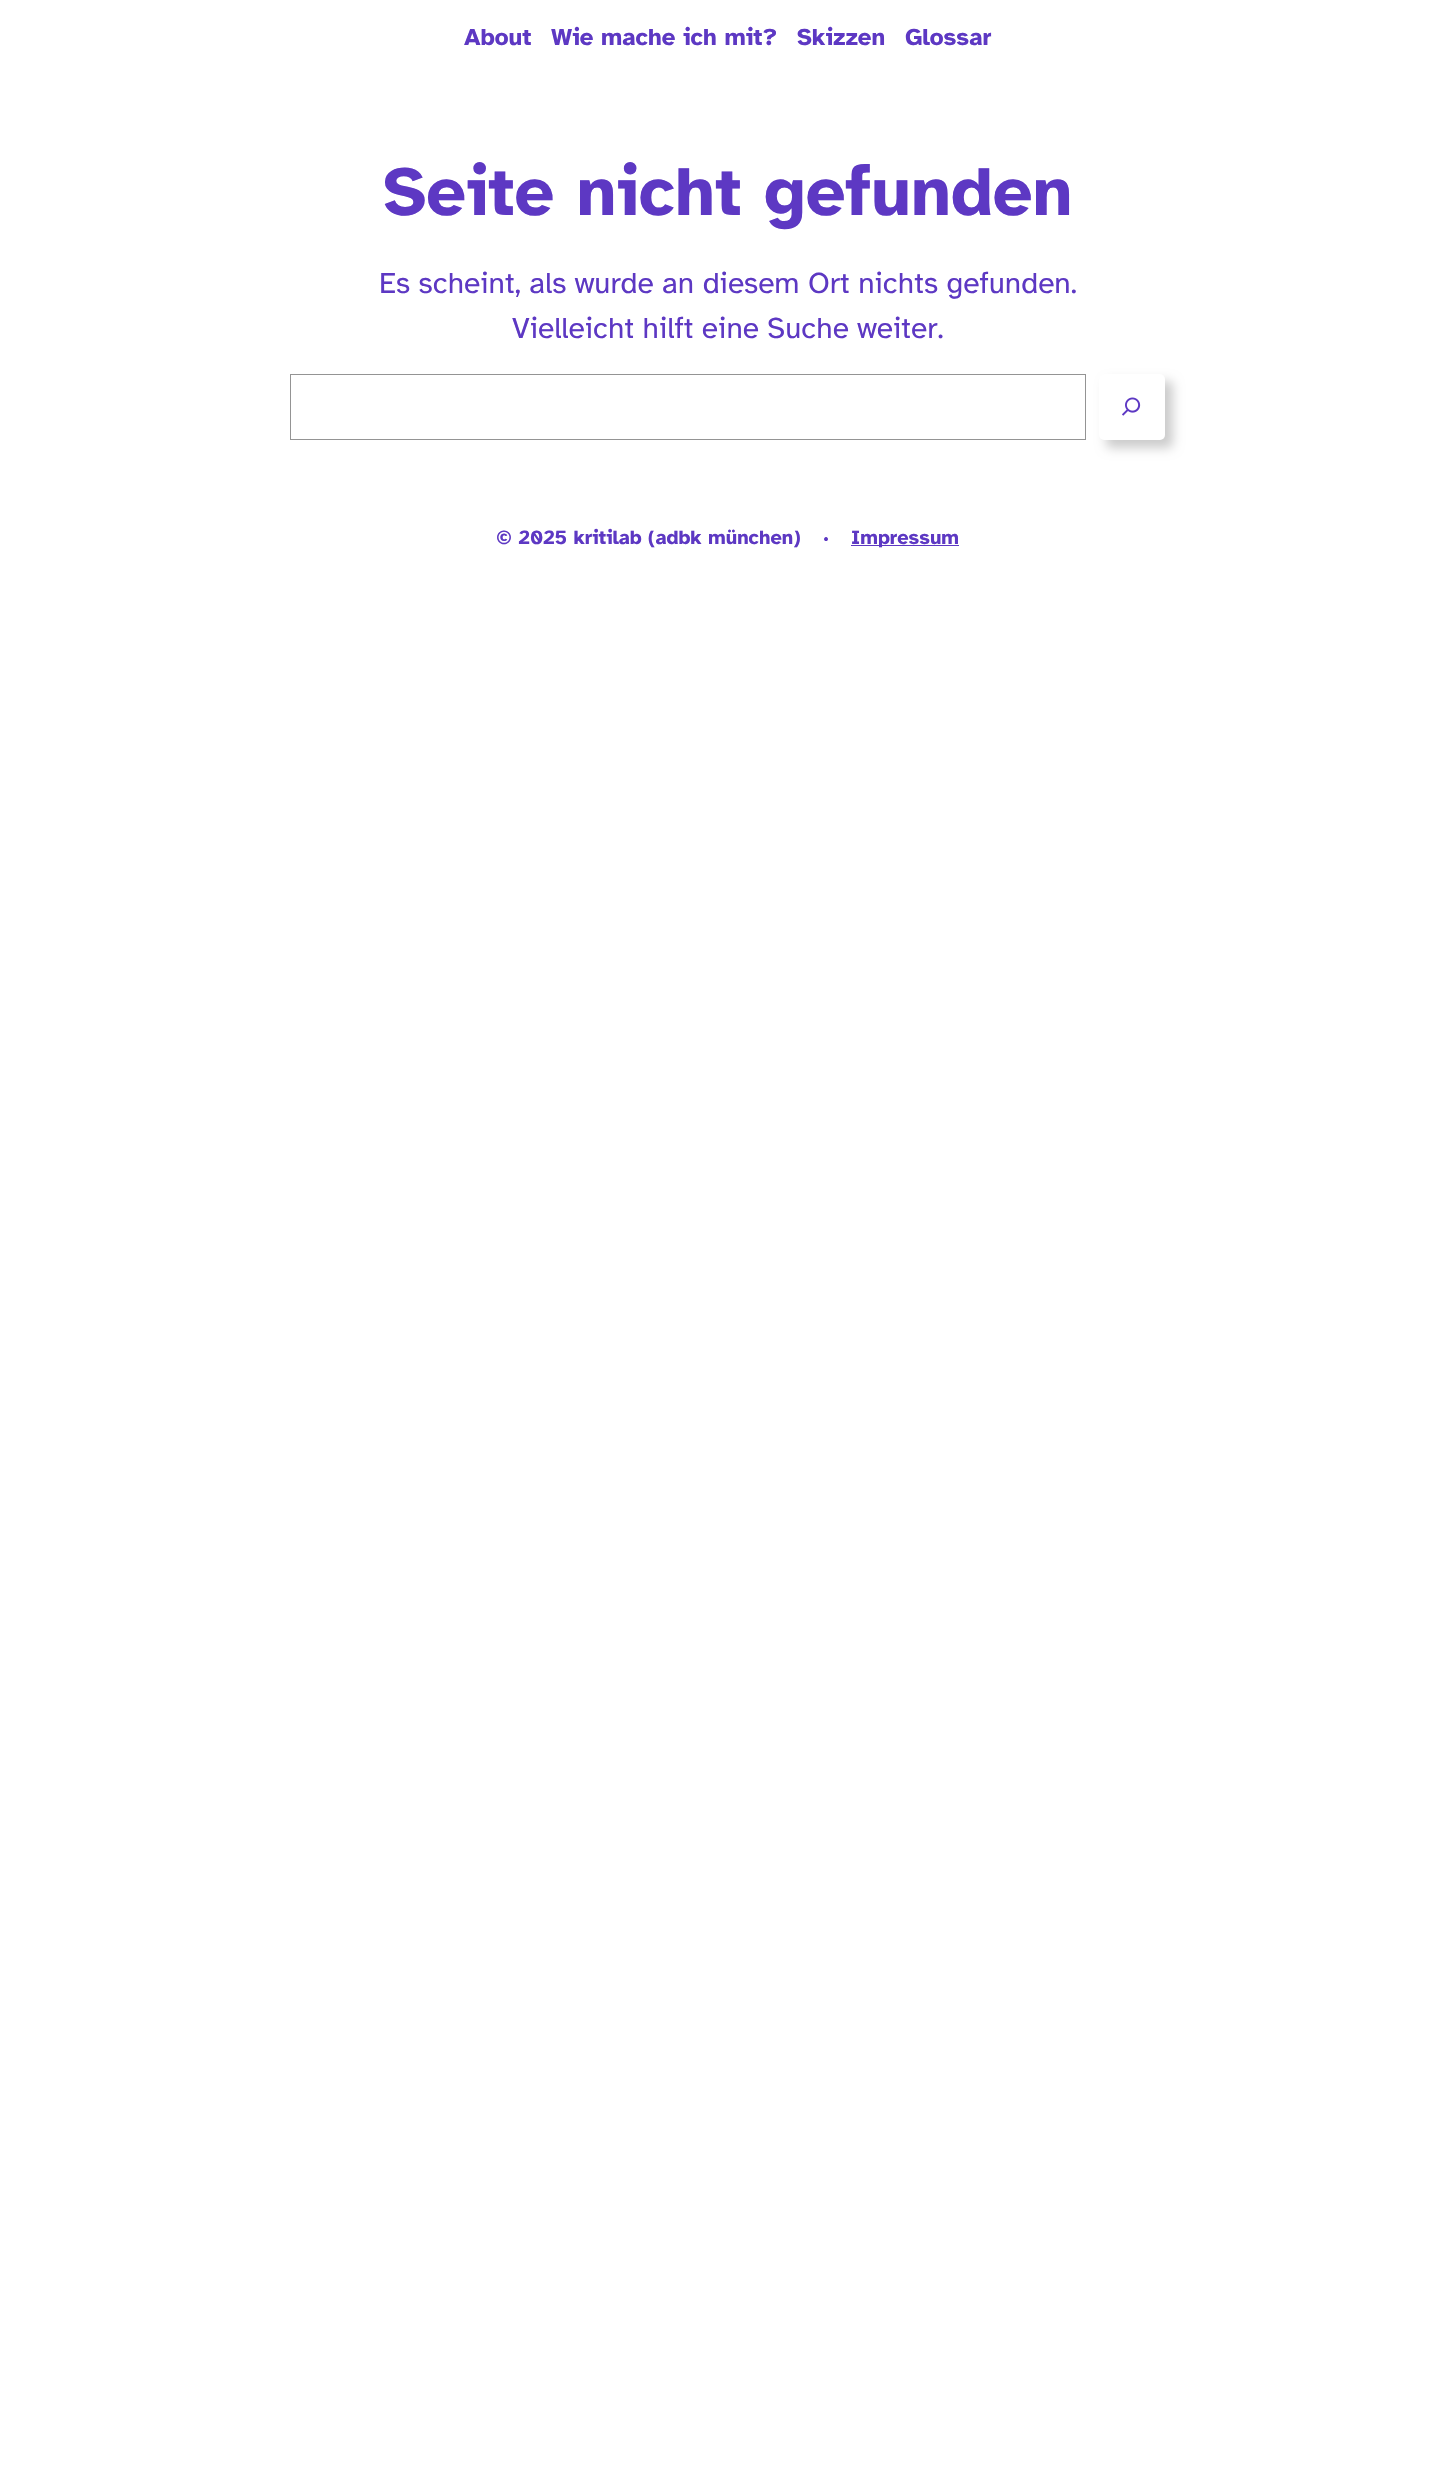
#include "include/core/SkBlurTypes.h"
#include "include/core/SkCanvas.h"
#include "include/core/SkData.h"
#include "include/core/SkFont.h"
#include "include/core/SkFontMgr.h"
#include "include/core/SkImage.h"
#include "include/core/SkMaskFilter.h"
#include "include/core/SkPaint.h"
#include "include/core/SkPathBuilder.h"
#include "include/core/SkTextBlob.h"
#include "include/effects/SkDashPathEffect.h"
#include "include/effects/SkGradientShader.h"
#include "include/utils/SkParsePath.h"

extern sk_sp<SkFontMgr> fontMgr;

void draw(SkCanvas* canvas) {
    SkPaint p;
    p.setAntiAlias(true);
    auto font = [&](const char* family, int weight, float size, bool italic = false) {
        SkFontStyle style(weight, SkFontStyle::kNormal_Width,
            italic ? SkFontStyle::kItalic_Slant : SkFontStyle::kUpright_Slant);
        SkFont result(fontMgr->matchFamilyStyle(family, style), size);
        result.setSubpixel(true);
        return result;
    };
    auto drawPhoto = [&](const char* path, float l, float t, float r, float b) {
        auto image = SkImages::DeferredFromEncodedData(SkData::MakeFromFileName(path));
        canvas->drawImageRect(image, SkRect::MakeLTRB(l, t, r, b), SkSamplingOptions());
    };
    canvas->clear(0xFFFFFFFF);
    auto font1 = font("Atkinson Hyperlegible", 700, 24);
    p.setColor(0xFF5D38C3);
    {
        const struct { const char* s; float x, y; } items[] = {
            {"About", 464, 45},
            {"Wie mache ich mit?", 551, 45},
            {"Skizzen", 797, 45},
            {"Glossar", 905, 45},
        };
        for (auto [s, x, y] : items) {
            canvas->drawString(s, x, y, font1, p);
        }
    }
    auto font2 = font("Atkinson Hyperlegible", 700, 70);
    canvas->drawString("Seite nicht gefunden", 383, 215, font2, p);
    auto font3 = font("Atkinson Hyperlegible", 400, 30);
    canvas->drawString("Es scheint, als wurde an diesem Ort nichts gefunden.", 379, 293, font3, p);
    canvas->drawString("Vielleicht hilft eine Suche weiter.", 512, 338, font3, p);
    p.setStyle(SkPaint::kStroke_Style);
    p.setStrokeWidth(1);
    p.setColor(0xFF949494);
    canvas->drawRect(SkRect::MakeLTRB(290.5f, 374.5f, 1085.5f, 439.5f), p);
    p.setStyle(SkPaint::kFill_Style);
    p.setColor(0x33000000);
    p.setMaskFilter(SkMaskFilter::MakeBlur(kNormal_SkBlurStyle, 5.5f));
    canvas->drawRoundRect(SkRect::MakeLTRB(1106, 381, 1173, 448), 5, 5, p);
    p.setMaskFilter(nullptr);
    p.setColor(0xFFFFFFFF);
    canvas->drawRoundRect(SkRect::MakeLTRB(1099, 374, 1165, 440), 5, 5, p);
    drawPhoto("media/1.png", 1122, 397, 1141, 416);
    auto font4 = font("Atkinson Hyperlegible", 700, 20);
    p.setColor(0xFF5D38C3);
    canvas->drawString("© 2025 kritilab (adbk münchen)", 496, 544, font4, p);
    canvas->drawString("·", 823, 544, font4, p);
    canvas->drawRect(SkRect::MakeLTRB(851, 545, 959, 546), p);
    canvas->drawString("Impressum", 851, 544, font4, p);
}
